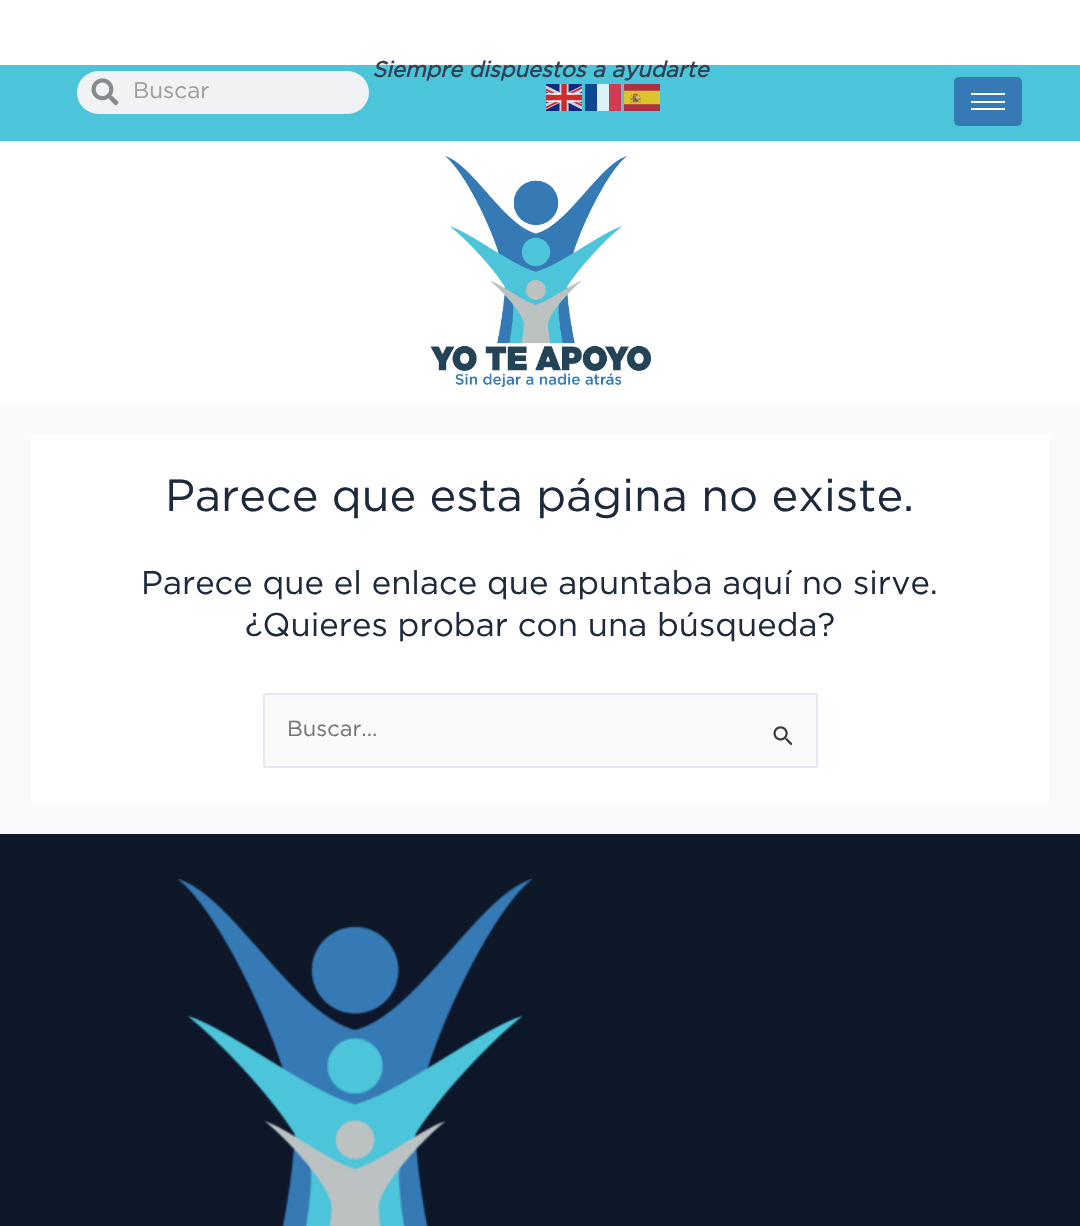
#include "include/core/SkBlurTypes.h"
#include "include/core/SkCanvas.h"
#include "include/core/SkData.h"
#include "include/core/SkFont.h"
#include "include/core/SkFontMgr.h"
#include "include/core/SkImage.h"
#include "include/core/SkMaskFilter.h"
#include "include/core/SkPaint.h"
#include "include/core/SkPathBuilder.h"
#include "include/core/SkTextBlob.h"
#include "include/effects/SkDashPathEffect.h"
#include "include/effects/SkGradientShader.h"
#include "include/utils/SkParsePath.h"

extern sk_sp<SkFontMgr> fontMgr;

void draw(SkCanvas* canvas) {
    SkPaint p;
    p.setAntiAlias(true);
    auto font = [&](const char* family, int weight, float size, bool italic = false) {
        SkFontStyle style(weight, SkFontStyle::kNormal_Width,
            italic ? SkFontStyle::kItalic_Slant : SkFontStyle::kUpright_Slant);
        SkFont result(fontMgr->matchFamilyStyle(family, style), size);
        result.setSubpixel(true);
        return result;
    };
    auto drawPhoto = [&](const char* path, float l, float t, float r, float b) {
        auto image = SkImages::DeferredFromEncodedData(SkData::MakeFromFileName(path));
        canvas->drawImageRect(image, SkRect::MakeLTRB(l, t, r, b), SkSamplingOptions());
    };
    canvas->clear(0xFFF9FAFB);
    p.setColor(0xFFFFFFFF);
    canvas->drawRect(SkRect::MakeLTRB(0, 0, 1080, 402), p);
    p.setColor(0xFF4CC5DA);
    canvas->drawRect(SkRect::MakeLTRB(0, 65, 1080, 141), p);
    auto font1 = font("Gotham", 700, 21.9f, true);
    p.setColor(0xFF334155);
    canvas->drawString("Siempre dispuestos a ayudarte", 372, 77, font1, p);
    p.setColor(0xFFF1F2F3);
    canvas->drawRoundRect(SkRect::MakeLTRB(77, 71, 369, 114), 21.5f, 21.5f, p);
    drawPhoto("media/1.png", 91, 78, 119, 106);
    auto font2 = font("Gotham", 400, 22.5f);
    p.setColor(0xFF9E9E9E);
    canvas->drawString("Buscar", 133, 98, font2, p);
    drawPhoto("media/2.png", 546, 84, 582, 111);
    {
        const struct { float l, t, r, b; SkColor color; } items[] = {
            {585, 84, 597, 111, 0xFF0F4691},
            {597, 84, 609, 111, 0xFFDBF3F8},
            {609, 84, 621, 111, 0xFFD23B52},
        };
        for (auto [l, t, r, b, color] : items) {
            p.setColor(color);
            canvas->drawRect(SkRect::MakeLTRB(l, t, r, b), p);
        }
    }
    drawPhoto("media/3.png", 624, 84, 660, 111);
    p.setColor(0xFF3579B5);
    canvas->drawRoundRect(SkRect::MakeLTRB(955, 78, 1021, 125), 4, 4, p);
    p.setStyle(SkPaint::kStroke_Style);
    p.setStrokeWidth(2);
    canvas->drawRoundRect(SkRect::MakeLTRB(955, 78, 1021, 125), 4, 4, p);
    p.setStyle(SkPaint::kFill_Style);
    {
        const struct { float l, t, r, b; SkColor color; } items[] = {
            {971, 93, 1005, 95, 0xFFFFFFFF},
            {971, 101, 1005, 103, 0xFFFFFFFF},
            {971, 108, 1005, 110, 0xFFFFFFFF},
        };
        for (auto [l, t, r, b, color] : items) {
            p.setColor(color);
            canvas->drawRect(SkRect::MakeLTRB(l, t, r, b), p);
        }
    }
    drawPhoto("media/4.png", 430, 156, 651, 387);
    canvas->drawRect(SkRect::MakeLTRB(30, 435, 1050, 801), p);
    auto font3 = font("Gotham", 400, 45);
    p.setColor(0xFF1E293B);
    canvas->drawString("Parece que esta página no existe.", 165, 511, font3, p);
    auto font4 = font("Gotham", 400, 32.8f);
    canvas->drawString("Parece que el enlace que apuntaba aquí no sirve.", 141, 594, font4, p);
    canvas->drawString("¿Quieres probar con una búsqueda?", 245, 636, font4, p);
    p.setColor(0xFFFAFAFA);
    canvas->drawRoundRect(SkRect::MakeLTRB(264, 694, 817, 767), 2, 2, p);
    p.setStyle(SkPaint::kStroke_Style);
    p.setColor(0xFFE2E8F0);
    canvas->drawRoundRect(SkRect::MakeLTRB(264, 694, 817, 767), 2, 2, p);
    auto font5 = font("Gotham", 400, 21.9f);
    p.setStyle(SkPaint::kFill_Style);
    p.setColor(0xFF757575);
    canvas->drawString("Buscar...", 287, 736, font5, p);
    drawPhoto("media/5.png", 773, 726, 792, 746);
    {
        const SkColor colors[] = {0xFF0E1829, 0xFF0E1529};
        const float stops[] = {0, 1};
        const SkPoint ends[] = {{540, 834}, {540, 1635}};
        p.setShader(SkGradientShader::MakeLinear(ends, colors, stops, 2, SkTileMode::kClamp));
        p.setAlpha(255);
    }
    canvas->drawRect(SkRect::MakeLTRB(0, 834, 1080, 1226), p);
    drawPhoto("media/6.png", 177, 879, 533, 1226);
}
